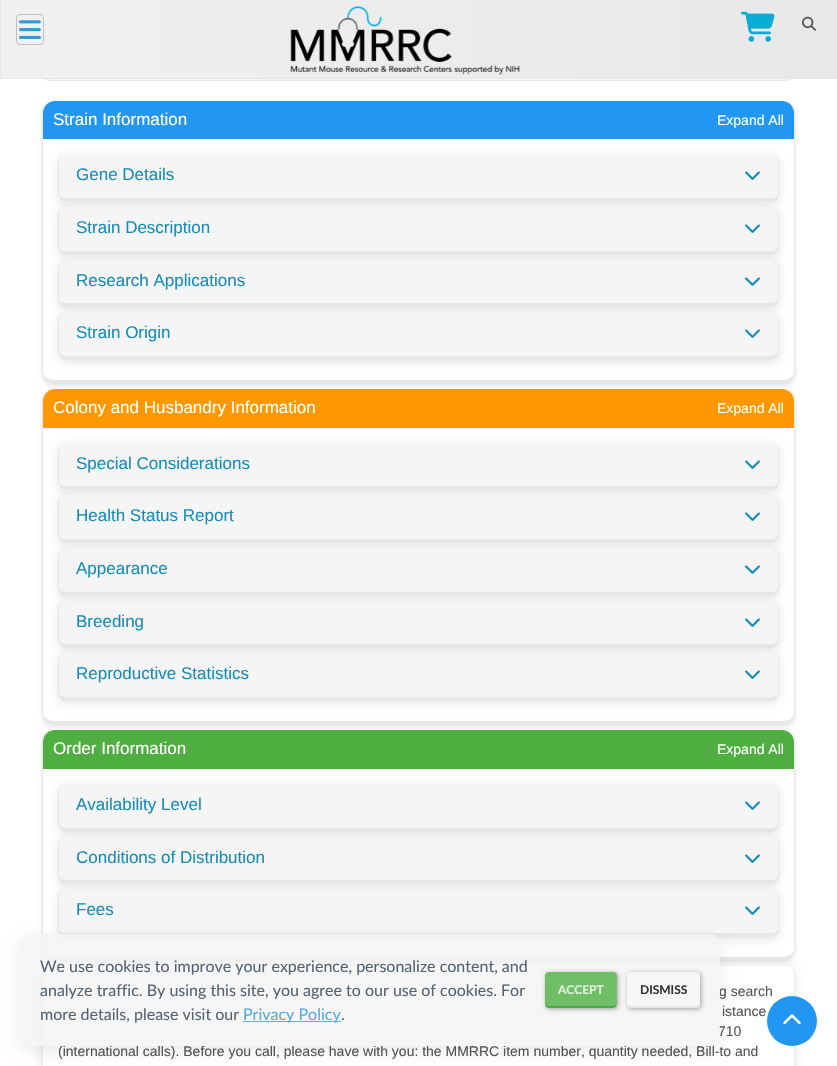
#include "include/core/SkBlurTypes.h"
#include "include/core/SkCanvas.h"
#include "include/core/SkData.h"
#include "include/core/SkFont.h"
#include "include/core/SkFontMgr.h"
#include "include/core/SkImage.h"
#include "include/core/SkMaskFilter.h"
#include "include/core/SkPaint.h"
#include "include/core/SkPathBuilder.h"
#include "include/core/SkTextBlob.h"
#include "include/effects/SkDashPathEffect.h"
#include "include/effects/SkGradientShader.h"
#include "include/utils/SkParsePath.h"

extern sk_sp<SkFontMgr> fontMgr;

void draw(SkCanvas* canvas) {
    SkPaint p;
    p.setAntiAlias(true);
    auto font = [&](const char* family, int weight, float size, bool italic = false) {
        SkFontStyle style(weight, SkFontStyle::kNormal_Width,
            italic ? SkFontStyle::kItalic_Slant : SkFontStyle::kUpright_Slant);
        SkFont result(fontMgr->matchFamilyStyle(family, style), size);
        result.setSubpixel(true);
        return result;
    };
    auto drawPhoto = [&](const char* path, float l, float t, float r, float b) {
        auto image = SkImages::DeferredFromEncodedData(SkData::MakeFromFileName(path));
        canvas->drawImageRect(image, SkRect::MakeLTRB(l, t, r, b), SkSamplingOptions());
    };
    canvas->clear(0xFFFFFFFF);
    p.setColor(0xFFF5F5F5);
    canvas->drawRoundRect(SkRect::MakeLTRB(42.5f, -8.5f, 794.5f, 80.5f), 7.5f, 7.5f, p);
    p.setStyle(SkPaint::kStroke_Style);
    p.setStrokeWidth(1);
    p.setColor(0xFFE7E7E7);
    canvas->drawRoundRect(SkRect::MakeLTRB(42.5f, -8.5f, 794.5f, 80.5f), 7.5f, 7.5f, p);
    p.setStyle(SkPaint::kFill_Style);
    {
        const SkColor colors[] = {0xFFF0F0F0, 0xFFE8E8E8};
        const float stops[] = {0, 1};
        const SkPoint ends[] = {{1, 39}, {836, 39}};
        p.setShader(SkGradientShader::MakeLinear(ends, colors, stops, 2, SkTileMode::kClamp));
        p.setAlpha(255);
    }
    canvas->drawRect(SkRect::MakeLTRB(1, 0, 836, 78), p);
    p.setShader(nullptr);
    {
        const struct { float l, t, r, b; SkColor color; } items[] = {
            {836, 0, 837, 79, 0xFFE7E7E7},
            {0, 78, 837, 79, 0xFFE7E7E7},
            {0, 0, 1, 79, 0xFFE7E7E7},
        };
        for (auto [l, t, r, b, color] : items) {
            p.setColor(color);
            canvas->drawRect(SkRect::MakeLTRB(l, t, r, b), p);
        }
    }
    p.setStyle(SkPaint::kStroke_Style);
    p.setColor(0xFFBFBFC4);
    canvas->drawRoundRect(SkRect::MakeLTRB(16.5f, 14.5f, 43.5f, 44.5f), 3.5f, 3.5f, p);
    drawPhoto("media/1.png", 19, 20, 41, 39);
    drawPhoto("media/2.png", 290, 6, 520, 75);
    drawPhoto("media/3.png", 741, 11, 775, 42);
    drawPhoto("media/4.png", 802, 16, 816, 31);
    canvas->save();
    canvas->clipPath(SkPathBuilder(SkPathFillType::kEvenOdd).moveTo(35, 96).lineTo(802, 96).lineTo(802, 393).lineTo(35, 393).close().moveTo(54, 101).lineTo(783, 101).cubicTo(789.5f, 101, 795, 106.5f, 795, 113).lineTo(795, 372).cubicTo(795, 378.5f, 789.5f, 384, 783, 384).lineTo(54, 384).cubicTo(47.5f, 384, 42, 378.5f, 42, 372).lineTo(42, 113).cubicTo(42, 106.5f, 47.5f, 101, 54, 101).close().detach(), true);
    p.setStyle(SkPaint::kFill_Style);
    p.setColor(0x1A000000);
    p.setMaskFilter(SkMaskFilter::MakeBlur(kNormal_SkBlurStyle, 2));
    canvas->drawRoundRect(SkRect::MakeLTRB(42, 103, 795, 386), 12, 12, p);
    p.setMaskFilter(nullptr);
    canvas->restore();
    p.setColor(0xFFE7E7E7);
    canvas->drawPath(SkPathBuilder(SkPathFillType::kEvenOdd).moveTo(54, 101).lineTo(783, 101).cubicTo(790, 101, 795, 106, 795, 113).lineTo(795, 372).cubicTo(795, 379, 790, 384, 783, 384).lineTo(54, 384).cubicTo(47, 384, 42, 379, 42, 372).lineTo(42, 113).cubicTo(42, 106, 47, 101, 54, 101).close().moveTo(54, 101).lineTo(783, 101).cubicTo(789, 101, 794, 106, 794, 113).lineTo(794, 372).cubicTo(794, 376, 789, 380, 783, 380).lineTo(54, 380).cubicTo(48, 380, 43, 376, 43, 372).lineTo(43, 113).cubicTo(43, 106, 48, 101, 54, 101).close().detach(), p);
    p.setColor(0xFF2196F3);
    canvas->drawPath(SkPathBuilder().moveTo(55, 101).lineTo(782, 101).cubicTo(788.5f, 101, 794, 106.5f, 794, 113).lineTo(794, 139).lineTo(43, 139).lineTo(43, 113).cubicTo(43, 106.5f, 48.5f, 101, 55, 101).close().detach(), p);
    auto font1 = font("Liberation Sans", 400, 17);
    p.setColor(0xFFFFFFFF);
    canvas->drawString("Strain Information", 53, 125, font1, p);
    auto font2 = font("Liberation Sans", 400, 14);
    canvas->drawString("Expand All", 717, 125, font2, p);
    p.setColor(0x1A000000);
    p.setMaskFilter(SkMaskFilter::MakeBlur(kNormal_SkBlurStyle, 5));
    canvas->drawRoundRect(SkRect::MakeLTRB(58, 156, 779, 204), 8, 8, p);
    p.setMaskFilter(nullptr);
    p.setColor(0xFFE7E7E7);
    canvas->drawPath(SkPathBuilder(SkPathFillType::kEvenOdd).moveTo(66, 154).lineTo(771, 154).cubicTo(775, 154, 779, 158, 779, 162).lineTo(779, 194).cubicTo(779, 198, 775, 202, 771, 202).lineTo(66, 202).cubicTo(62, 202, 58, 198, 58, 194).lineTo(58, 162).cubicTo(58, 158, 62, 154, 66, 154).close().moveTo(66, 154).lineTo(771, 154).cubicTo(775, 154, 778, 158, 778, 162).lineTo(778, 194).cubicTo(778, 196, 775, 198, 771, 198).lineTo(66, 198).cubicTo(62, 198, 59, 196, 59, 194).lineTo(59, 162).cubicTo(59, 158, 62, 154, 66, 154).close().detach(), p);
    p.setColor(0xFFF5F5F5);
    canvas->drawPath(SkPathBuilder().moveTo(66, 154).cubicTo(62, 154, 59, 158, 59, 162).lineTo(59, 194).cubicTo(59, 196, 62, 198, 66, 198).lineTo(771, 198).cubicTo(775, 198, 778, 196, 778, 194).lineTo(778, 162).cubicTo(778, 158, 775, 154, 771, 154).close().detach(), p);
    p.setColor(0xFF158CBA);
    canvas->drawString("Gene Details", 76, 180, font1, p);
    drawPhoto("media/5.png", 745, 171, 760, 180);
    p.setColor(0x1A000000);
    p.setMaskFilter(SkMaskFilter::MakeBlur(kNormal_SkBlurStyle, 5));
    canvas->drawRoundRect(SkRect::MakeLTRB(58, 209, 779, 257), 8, 8, p);
    p.setMaskFilter(nullptr);
    p.setColor(0xFFE7E7E7);
    canvas->drawPath(SkPathBuilder(SkPathFillType::kEvenOdd).moveTo(66, 207).lineTo(771, 207).cubicTo(775, 207, 779, 211, 779, 215).lineTo(779, 247).cubicTo(779, 251, 775, 255, 771, 255).lineTo(66, 255).cubicTo(62, 255, 58, 251, 58, 247).lineTo(58, 215).cubicTo(58, 211, 62, 207, 66, 207).close().moveTo(66, 207).lineTo(771, 207).cubicTo(775, 207, 778, 211, 778, 215).lineTo(778, 247).cubicTo(778, 249, 775, 251, 771, 251).lineTo(66, 251).cubicTo(62, 251, 59, 249, 59, 247).lineTo(59, 215).cubicTo(59, 211, 62, 207, 66, 207).close().detach(), p);
    p.setColor(0xFFF5F5F5);
    canvas->drawPath(SkPathBuilder().moveTo(66, 207).cubicTo(62, 207, 59, 211, 59, 215).lineTo(59, 247).cubicTo(59, 249, 62, 251, 66, 251).lineTo(771, 251).cubicTo(775, 251, 778, 249, 778, 247).lineTo(778, 215).cubicTo(778, 211, 775, 207, 771, 207).close().detach(), p);
    p.setColor(0xFF158CBA);
    canvas->drawString("Strain Description", 76, 233, font1, p);
    drawPhoto("media/5.png", 745, 224, 760, 233);
    p.setColor(0x1A000000);
    p.setMaskFilter(SkMaskFilter::MakeBlur(kNormal_SkBlurStyle, 5));
    canvas->drawRoundRect(SkRect::MakeLTRB(58, 262, 779, 309), 8, 8, p);
    p.setMaskFilter(nullptr);
    p.setColor(0xFFE7E7E7);
    canvas->drawPath(SkPathBuilder(SkPathFillType::kEvenOdd).moveTo(66, 260).lineTo(771, 260).cubicTo(775, 260, 779, 264, 779, 268).lineTo(779, 299).cubicTo(779, 303, 775, 307, 771, 307).lineTo(66, 307).cubicTo(62, 307, 58, 303, 58, 299).lineTo(58, 268).cubicTo(58, 264, 62, 260, 66, 260).close().moveTo(66, 260).lineTo(771, 260).cubicTo(775, 260, 778, 264, 778, 268).lineTo(778, 299).cubicTo(778, 301, 775, 303, 771, 303).lineTo(66, 303).cubicTo(62, 303, 59, 301, 59, 299).lineTo(59, 268).cubicTo(59, 264, 62, 260, 66, 260).close().detach(), p);
    p.setColor(0xFFF5F5F5);
    canvas->drawPath(SkPathBuilder().moveTo(66, 260).cubicTo(62, 260, 59, 264, 59, 268).lineTo(59, 299).cubicTo(59, 301, 62, 303, 66, 303).lineTo(771, 303).cubicTo(775, 303, 778, 301, 778, 299).lineTo(778, 268).cubicTo(778, 264, 775, 260, 771, 260).close().detach(), p);
    p.setColor(0xFF158CBA);
    canvas->drawString("Research Applications", 76, 286, font1, p);
    drawPhoto("media/5.png", 745, 277, 760, 286);
    p.setColor(0x1A000000);
    p.setMaskFilter(SkMaskFilter::MakeBlur(kNormal_SkBlurStyle, 5));
    canvas->drawRoundRect(SkRect::MakeLTRB(58, 314, 779, 362), 8, 8, p);
    p.setMaskFilter(nullptr);
    p.setColor(0xFFE7E7E7);
    canvas->drawPath(SkPathBuilder(SkPathFillType::kEvenOdd).moveTo(66, 312).lineTo(771, 312).cubicTo(775, 312, 779, 316, 779, 320).lineTo(779, 352).cubicTo(779, 356, 775, 360, 771, 360).lineTo(66, 360).cubicTo(62, 360, 58, 356, 58, 352).lineTo(58, 320).cubicTo(58, 316, 62, 312, 66, 312).close().moveTo(66, 312).lineTo(771, 312).cubicTo(775, 312, 778, 316, 778, 320).lineTo(778, 352).cubicTo(778, 354, 775, 356, 771, 356).lineTo(66, 356).cubicTo(62, 356, 59, 354, 59, 352).lineTo(59, 320).cubicTo(59, 316, 62, 312, 66, 312).close().detach(), p);
    p.setColor(0xFFF5F5F5);
    canvas->drawPath(SkPathBuilder().moveTo(66, 312).cubicTo(62, 312, 59, 316, 59, 320).lineTo(59, 352).cubicTo(59, 354, 62, 356, 66, 356).lineTo(771, 356).cubicTo(775, 356, 778, 354, 778, 352).lineTo(778, 320).cubicTo(778, 316, 775, 312, 771, 312).close().detach(), p);
    p.setColor(0xFF158CBA);
    canvas->drawString("Strain Origin", 76, 338, font1, p);
    drawPhoto("media/5.png", 745, 329, 760, 338);
    canvas->save();
    canvas->clipPath(SkPathBuilder(SkPathFillType::kEvenOdd).moveTo(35, 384).lineTo(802, 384).lineTo(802, 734).lineTo(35, 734).close().moveTo(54, 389).lineTo(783, 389).cubicTo(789.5f, 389, 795, 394.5f, 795, 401).lineTo(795, 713).cubicTo(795, 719.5f, 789.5f, 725, 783, 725).lineTo(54, 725).cubicTo(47.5f, 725, 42, 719.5f, 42, 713).lineTo(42, 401).cubicTo(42, 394.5f, 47.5f, 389, 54, 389).close().detach(), true);
    p.setColor(0x1A000000);
    p.setMaskFilter(SkMaskFilter::MakeBlur(kNormal_SkBlurStyle, 2));
    canvas->drawRoundRect(SkRect::MakeLTRB(42, 391, 795, 727), 12, 12, p);
    p.setMaskFilter(nullptr);
    canvas->restore();
    p.setColor(0xFFE7E7E7);
    canvas->drawPath(SkPathBuilder(SkPathFillType::kEvenOdd).moveTo(54, 389).lineTo(783, 389).cubicTo(790, 389, 795, 394, 795, 401).lineTo(795, 713).cubicTo(795, 720, 790, 725, 783, 725).lineTo(54, 725).cubicTo(47, 725, 42, 720, 42, 713).lineTo(42, 401).cubicTo(42, 394, 47, 389, 54, 389).close().moveTo(54, 389).lineTo(783, 389).cubicTo(789, 389, 794, 394, 794, 401).lineTo(794, 713).cubicTo(794, 717, 789, 721, 783, 721).lineTo(54, 721).cubicTo(48, 721, 43, 717, 43, 713).lineTo(43, 401).cubicTo(43, 394, 48, 389, 54, 389).close().detach(), p);
    p.setColor(0xFFFF9800);
    canvas->drawPath(SkPathBuilder().moveTo(55, 389).lineTo(782, 389).cubicTo(788.5f, 389, 794, 394.5f, 794, 401).lineTo(794, 428).lineTo(43, 428).lineTo(43, 401).cubicTo(43, 394.5f, 48.5f, 389, 55, 389).close().detach(), p);
    p.setColor(0xFFFFFFFF);
    canvas->drawString("Colony and Husbandry Information", 53, 413, font1, p);
    canvas->drawString("Expand All", 717, 413, font2, p);
    p.setColor(0x1A000000);
    p.setMaskFilter(SkMaskFilter::MakeBlur(kNormal_SkBlurStyle, 5));
    canvas->drawRoundRect(SkRect::MakeLTRB(58, 445, 779, 492), 8, 8, p);
    p.setMaskFilter(nullptr);
    p.setColor(0xFFE7E7E7);
    canvas->drawPath(SkPathBuilder(SkPathFillType::kEvenOdd).moveTo(66, 443).lineTo(771, 443).cubicTo(775, 443, 779, 447, 779, 451).lineTo(779, 482).cubicTo(779, 486, 775, 490, 771, 490).lineTo(66, 490).cubicTo(62, 490, 58, 486, 58, 482).lineTo(58, 451).cubicTo(58, 447, 62, 443, 66, 443).close().moveTo(66, 443).lineTo(771, 443).cubicTo(775, 443, 778, 447, 778, 451).lineTo(778, 482).cubicTo(778, 484, 775, 486, 771, 486).lineTo(66, 486).cubicTo(62, 486, 59, 484, 59, 482).lineTo(59, 451).cubicTo(59, 447, 62, 443, 66, 443).close().detach(), p);
    p.setColor(0xFFF5F5F5);
    canvas->drawPath(SkPathBuilder().moveTo(66, 443).cubicTo(62, 443, 59, 447, 59, 451).lineTo(59, 482).cubicTo(59, 484, 62, 486, 66, 486).lineTo(771, 486).cubicTo(775, 486, 778, 484, 778, 482).lineTo(778, 451).cubicTo(778, 447, 775, 443, 771, 443).close().detach(), p);
    p.setColor(0xFF158CBA);
    canvas->drawString("Special Considerations", 76, 469, font1, p);
    drawPhoto("media/5.png", 745, 460, 760, 469);
    p.setColor(0x1A000000);
    p.setMaskFilter(SkMaskFilter::MakeBlur(kNormal_SkBlurStyle, 5));
    canvas->drawRoundRect(SkRect::MakeLTRB(58, 497, 779, 545), 8, 8, p);
    p.setMaskFilter(nullptr);
    p.setColor(0xFFE7E7E7);
    canvas->drawPath(SkPathBuilder(SkPathFillType::kEvenOdd).moveTo(66, 495).lineTo(771, 495).cubicTo(775, 495, 779, 499, 779, 503).lineTo(779, 535).cubicTo(779, 539, 775, 543, 771, 543).lineTo(66, 543).cubicTo(62, 543, 58, 539, 58, 535).lineTo(58, 503).cubicTo(58, 499, 62, 495, 66, 495).close().moveTo(66, 495).lineTo(771, 495).cubicTo(775, 495, 778, 499, 778, 503).lineTo(778, 535).cubicTo(778, 537, 775, 539, 771, 539).lineTo(66, 539).cubicTo(62, 539, 59, 537, 59, 535).lineTo(59, 503).cubicTo(59, 499, 62, 495, 66, 495).close().detach(), p);
    p.setColor(0xFFF5F5F5);
    canvas->drawPath(SkPathBuilder().moveTo(66, 495).cubicTo(62, 495, 59, 499, 59, 503).lineTo(59, 535).cubicTo(59, 537, 62, 539, 66, 539).lineTo(771, 539).cubicTo(775, 539, 778, 537, 778, 535).lineTo(778, 503).cubicTo(778, 499, 775, 495, 771, 495).close().detach(), p);
    p.setColor(0xFF158CBA);
    canvas->drawString("Health Status Report", 76, 521, font1, p);
    drawPhoto("media/5.png", 745, 512, 760, 521);
    p.setColor(0x1A000000);
    p.setMaskFilter(SkMaskFilter::MakeBlur(kNormal_SkBlurStyle, 5));
    canvas->drawRoundRect(SkRect::MakeLTRB(58, 550, 779, 598), 8, 8, p);
    p.setMaskFilter(nullptr);
    p.setColor(0xFFE7E7E7);
    canvas->drawPath(SkPathBuilder(SkPathFillType::kEvenOdd).moveTo(66, 548).lineTo(771, 548).cubicTo(775, 548, 779, 552, 779, 556).lineTo(779, 588).cubicTo(779, 592, 775, 596, 771, 596).lineTo(66, 596).cubicTo(62, 596, 58, 592, 58, 588).lineTo(58, 556).cubicTo(58, 552, 62, 548, 66, 548).close().moveTo(66, 548).lineTo(771, 548).cubicTo(775, 548, 778, 552, 778, 556).lineTo(778, 588).cubicTo(778, 590, 775, 592, 771, 592).lineTo(66, 592).cubicTo(62, 592, 59, 590, 59, 588).lineTo(59, 556).cubicTo(59, 552, 62, 548, 66, 548).close().detach(), p);
    p.setColor(0xFFF5F5F5);
    canvas->drawPath(SkPathBuilder().moveTo(66, 548).cubicTo(62, 548, 59, 552, 59, 556).lineTo(59, 588).cubicTo(59, 590, 62, 592, 66, 592).lineTo(771, 592).cubicTo(775, 592, 778, 590, 778, 588).lineTo(778, 556).cubicTo(778, 552, 775, 548, 771, 548).close().detach(), p);
    p.setColor(0xFF158CBA);
    canvas->drawString("Appearance", 76, 574, font1, p);
    drawPhoto("media/5.png", 745, 565, 760, 574);
    p.setColor(0x1A000000);
    p.setMaskFilter(SkMaskFilter::MakeBlur(kNormal_SkBlurStyle, 5));
    canvas->drawRoundRect(SkRect::MakeLTRB(58, 603, 779, 650), 8, 8, p);
    p.setMaskFilter(nullptr);
    p.setColor(0xFFE7E7E7);
    canvas->drawPath(SkPathBuilder(SkPathFillType::kEvenOdd).moveTo(66, 601).lineTo(771, 601).cubicTo(775, 601, 779, 605, 779, 609).lineTo(779, 640).cubicTo(779, 644, 775, 648, 771, 648).lineTo(66, 648).cubicTo(62, 648, 58, 644, 58, 640).lineTo(58, 609).cubicTo(58, 605, 62, 601, 66, 601).close().moveTo(66, 601).lineTo(771, 601).cubicTo(775, 601, 778, 605, 778, 609).lineTo(778, 640).cubicTo(778, 642, 775, 644, 771, 644).lineTo(66, 644).cubicTo(62, 644, 59, 642, 59, 640).lineTo(59, 609).cubicTo(59, 605, 62, 601, 66, 601).close().detach(), p);
    p.setColor(0xFFF5F5F5);
    canvas->drawPath(SkPathBuilder().moveTo(66, 601).cubicTo(62, 601, 59, 605, 59, 609).lineTo(59, 640).cubicTo(59, 642, 62, 644, 66, 644).lineTo(771, 644).cubicTo(775, 644, 778, 642, 778, 640).lineTo(778, 609).cubicTo(778, 605, 775, 601, 771, 601).close().detach(), p);
    p.setColor(0xFF158CBA);
    canvas->drawString("Breeding", 76, 627, font1, p);
    drawPhoto("media/5.png", 745, 618, 760, 627);
    p.setColor(0x1A000000);
    p.setMaskFilter(SkMaskFilter::MakeBlur(kNormal_SkBlurStyle, 5));
    canvas->drawRoundRect(SkRect::MakeLTRB(58, 655, 779, 703), 8, 8, p);
    p.setMaskFilter(nullptr);
    p.setColor(0xFFE7E7E7);
    canvas->drawPath(SkPathBuilder(SkPathFillType::kEvenOdd).moveTo(66, 653).lineTo(771, 653).cubicTo(775, 653, 779, 657, 779, 661).lineTo(779, 693).cubicTo(779, 697, 775, 701, 771, 701).lineTo(66, 701).cubicTo(62, 701, 58, 697, 58, 693).lineTo(58, 661).cubicTo(58, 657, 62, 653, 66, 653).close().moveTo(66, 653).lineTo(771, 653).cubicTo(775, 653, 778, 657, 778, 661).lineTo(778, 693).cubicTo(778, 695, 775, 697, 771, 697).lineTo(66, 697).cubicTo(62, 697, 59, 695, 59, 693).lineTo(59, 661).cubicTo(59, 657, 62, 653, 66, 653).close().detach(), p);
    p.setColor(0xFFF5F5F5);
    canvas->drawPath(SkPathBuilder().moveTo(66, 653).cubicTo(62, 653, 59, 657, 59, 661).lineTo(59, 693).cubicTo(59, 695, 62, 697, 66, 697).lineTo(771, 697).cubicTo(775, 697, 778, 695, 778, 693).lineTo(778, 661).cubicTo(778, 657, 775, 653, 771, 653).close().detach(), p);
    p.setColor(0xFF158CBA);
    canvas->drawString("Reproductive Statistics", 76, 679, font1, p);
    drawPhoto("media/5.png", 745, 670, 760, 679);
    canvas->save();
    canvas->clipPath(SkPathBuilder(SkPathFillType::kEvenOdd).moveTo(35, 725).lineTo(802, 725).lineTo(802, 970).lineTo(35, 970).close().moveTo(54, 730).lineTo(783, 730).cubicTo(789.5f, 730, 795, 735.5f, 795, 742).lineTo(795, 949).cubicTo(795, 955.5f, 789.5f, 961, 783, 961).lineTo(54, 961).cubicTo(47.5f, 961, 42, 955.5f, 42, 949).lineTo(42, 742).cubicTo(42, 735.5f, 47.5f, 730, 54, 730).close().detach(), true);
    p.setColor(0x1A000000);
    p.setMaskFilter(SkMaskFilter::MakeBlur(kNormal_SkBlurStyle, 2));
    canvas->drawRoundRect(SkRect::MakeLTRB(42, 732, 795, 963), 12, 12, p);
    p.setMaskFilter(nullptr);
    canvas->restore();
    p.setColor(0xFFE7E7E7);
    canvas->drawPath(SkPathBuilder(SkPathFillType::kEvenOdd).moveTo(54, 730).lineTo(783, 730).cubicTo(790, 730, 795, 735, 795, 742).lineTo(795, 949).cubicTo(795, 956, 790, 961, 783, 961).lineTo(54, 961).cubicTo(47, 961, 42, 956, 42, 949).lineTo(42, 742).cubicTo(42, 735, 47, 730, 54, 730).close().moveTo(54, 730).lineTo(783, 730).cubicTo(789, 730, 794, 735, 794, 742).lineTo(794, 949).cubicTo(794, 953, 789, 957, 783, 957).lineTo(54, 957).cubicTo(48, 957, 43, 953, 43, 949).lineTo(43, 742).cubicTo(43, 735, 48, 730, 54, 730).close().detach(), p);
    p.setColor(0xFF4EAF40);
    canvas->drawPath(SkPathBuilder().moveTo(55, 730).lineTo(782, 730).cubicTo(788.5f, 730, 794, 735.5f, 794, 742).lineTo(794, 769).lineTo(43, 769).lineTo(43, 742).cubicTo(43, 735.5f, 48.5f, 730, 55, 730).close().detach(), p);
    p.setColor(0xFFFFFFFF);
    canvas->drawString("Order Information", 53, 754, font1, p);
    canvas->drawString("Expand All", 717, 754, font2, p);
    p.setColor(0x1A000000);
    p.setMaskFilter(SkMaskFilter::MakeBlur(kNormal_SkBlurStyle, 5));
    canvas->drawRoundRect(SkRect::MakeLTRB(58, 786, 779, 834), 8, 8, p);
    p.setMaskFilter(nullptr);
    p.setColor(0xFFE7E7E7);
    canvas->drawPath(SkPathBuilder(SkPathFillType::kEvenOdd).moveTo(66, 784).lineTo(771, 784).cubicTo(775, 784, 779, 788, 779, 792).lineTo(779, 824).cubicTo(779, 828, 775, 832, 771, 832).lineTo(66, 832).cubicTo(62, 832, 58, 828, 58, 824).lineTo(58, 792).cubicTo(58, 788, 62, 784, 66, 784).close().moveTo(66, 784).lineTo(771, 784).cubicTo(775, 784, 778, 788, 778, 792).lineTo(778, 824).cubicTo(778, 826, 775, 828, 771, 828).lineTo(66, 828).cubicTo(62, 828, 59, 826, 59, 824).lineTo(59, 792).cubicTo(59, 788, 62, 784, 66, 784).close().detach(), p);
    p.setColor(0xFFF5F5F5);
    canvas->drawPath(SkPathBuilder().moveTo(66, 784).cubicTo(62, 784, 59, 788, 59, 792).lineTo(59, 824).cubicTo(59, 826, 62, 828, 66, 828).lineTo(771, 828).cubicTo(775, 828, 778, 826, 778, 824).lineTo(778, 792).cubicTo(778, 788, 775, 784, 771, 784).close().detach(), p);
    p.setColor(0xFF158CBA);
    canvas->drawString("Availability Level", 76, 810, font1, p);
    drawPhoto("media/5.png", 745, 801, 760, 810);
    p.setColor(0x1A000000);
    p.setMaskFilter(SkMaskFilter::MakeBlur(kNormal_SkBlurStyle, 5));
    canvas->drawRoundRect(SkRect::MakeLTRB(58, 839, 779, 886), 8, 8, p);
    p.setMaskFilter(nullptr);
    p.setColor(0xFFE7E7E7);
    canvas->drawPath(SkPathBuilder(SkPathFillType::kEvenOdd).moveTo(66, 837).lineTo(771, 837).cubicTo(775, 837, 779, 841, 779, 845).lineTo(779, 876).cubicTo(779, 880, 775, 884, 771, 884).lineTo(66, 884).cubicTo(62, 884, 58, 880, 58, 876).lineTo(58, 845).cubicTo(58, 841, 62, 837, 66, 837).close().moveTo(66, 837).lineTo(771, 837).cubicTo(775, 837, 778, 841, 778, 845).lineTo(778, 876).cubicTo(778, 878, 775, 880, 771, 880).lineTo(66, 880).cubicTo(62, 880, 59, 878, 59, 876).lineTo(59, 845).cubicTo(59, 841, 62, 837, 66, 837).close().detach(), p);
    p.setColor(0xFFF5F5F5);
    canvas->drawPath(SkPathBuilder().moveTo(66, 837).cubicTo(62, 837, 59, 841, 59, 845).lineTo(59, 876).cubicTo(59, 878, 62, 880, 66, 880).lineTo(771, 880).cubicTo(775, 880, 778, 878, 778, 876).lineTo(778, 845).cubicTo(778, 841, 775, 837, 771, 837).close().detach(), p);
    p.setColor(0xFF158CBA);
    canvas->drawString("Conditions of Distribution", 76, 863, font1, p);
    drawPhoto("media/5.png", 745, 854, 760, 863);
    p.setColor(0x1A000000);
    p.setMaskFilter(SkMaskFilter::MakeBlur(kNormal_SkBlurStyle, 5));
    canvas->drawRoundRect(SkRect::MakeLTRB(58, 891, 779, 939), 8, 8, p);
    p.setMaskFilter(nullptr);
    p.setColor(0xFFE7E7E7);
    canvas->drawPath(SkPathBuilder(SkPathFillType::kEvenOdd).moveTo(66, 889).lineTo(771, 889).cubicTo(775, 889, 779, 893, 779, 897).lineTo(779, 929).cubicTo(779, 933, 775, 937, 771, 937).lineTo(66, 937).cubicTo(62, 937, 58, 933, 58, 929).lineTo(58, 897).cubicTo(58, 893, 62, 889, 66, 889).close().moveTo(66, 889).lineTo(771, 889).cubicTo(775, 889, 778, 893, 778, 897).lineTo(778, 929).cubicTo(778, 931, 775, 933, 771, 933).lineTo(66, 933).cubicTo(62, 933, 59, 931, 59, 929).lineTo(59, 897).cubicTo(59, 893, 62, 889, 66, 889).close().detach(), p);
    p.setColor(0xFFF5F5F5);
    canvas->drawPath(SkPathBuilder().moveTo(66, 889).cubicTo(62, 889, 59, 893, 59, 897).lineTo(59, 929).cubicTo(59, 931, 62, 933, 66, 933).lineTo(771, 933).cubicTo(775, 933, 778, 931, 778, 929).lineTo(778, 897).cubicTo(778, 893, 775, 889, 771, 889).close().detach(), p);
    p.setColor(0xFF158CBA);
    canvas->drawString("Fees", 76, 915, font1, p);
    drawPhoto("media/5.png", 745, 906, 760, 915);
    canvas->save();
    canvas->clipPath(SkPathBuilder(SkPathFillType::kEvenOdd).moveTo(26, 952).lineTo(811, 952).lineTo(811, 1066).lineTo(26, 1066).close().moveTo(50, 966).lineTo(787, 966).cubicTo(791.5f, 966, 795, 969.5f, 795, 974).lineTo(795, 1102).cubicTo(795, 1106.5f, 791.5f, 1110, 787, 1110).lineTo(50, 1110).cubicTo(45.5f, 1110, 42, 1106.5f, 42, 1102).lineTo(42, 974).cubicTo(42, 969.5f, 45.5f, 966, 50, 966).close().detach(), true);
    p.setColor(0x1A000000);
    p.setMaskFilter(SkMaskFilter::MakeBlur(kNormal_SkBlurStyle, 5));
    canvas->drawRoundRect(SkRect::MakeLTRB(42, 968, 795, 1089), 8, 8, p);
    p.setMaskFilter(nullptr);
    canvas->restore();
    p.setColor(0xFFE7E7E7);
    canvas->drawPath(SkPathBuilder(SkPathFillType::kEvenOdd).moveTo(50, 966).lineTo(787, 966).cubicTo(791, 966, 795, 970, 795, 974).lineTo(795, 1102).cubicTo(795, 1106, 791, 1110, 787, 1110).lineTo(50, 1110).cubicTo(46, 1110, 42, 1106, 42, 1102).lineTo(42, 974).cubicTo(42, 970, 46, 966, 50, 966).close().moveTo(50, 966).lineTo(787, 966).cubicTo(791, 966, 794, 970, 794, 974).lineTo(794, 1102).cubicTo(794, 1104, 791, 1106, 787, 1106).lineTo(50, 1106).cubicTo(46, 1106, 43, 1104, 43, 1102).lineTo(43, 974).cubicTo(43, 970, 46, 966, 50, 966).close().detach(), p);
    p.setColor(0xFF555555);
    {
        const struct { const char* s; float x, y; } items[] = {
            {"g search", 719, 996},
            {"istance", 722, 1016},
            {"710", 718, 1036},
            {"(international calls). Before you call, please have with you: the MMRRC item number, quantity needed, Bill-to and", 58, 1056},
        };
        for (auto [s, x, y] : items) {
            canvas->drawString(s, x, y, font2, p);
        }
    }
    canvas->save();
    canvas->clipPath(SkPathBuilder(SkPathFillType::kEvenOdd).moveTo(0, 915).lineTo(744, 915).lineTo(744, 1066).lineTo(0, 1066).close().moveTo(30, 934).lineTo(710, 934).cubicTo(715.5f, 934, 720, 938.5f, 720, 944).lineTo(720, 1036).cubicTo(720, 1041.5f, 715.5f, 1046, 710, 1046).lineTo(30, 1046).cubicTo(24.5f, 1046, 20, 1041.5f, 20, 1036).lineTo(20, 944).cubicTo(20, 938.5f, 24.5f, 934, 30, 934).close().detach(), true);
    p.setColor(0x14000000);
    p.setMaskFilter(SkMaskFilter::MakeBlur(kNormal_SkBlurStyle, 7.5f));
    canvas->drawRoundRect(SkRect::MakeLTRB(20, 939, 720, 1051), 10, 10, p);
    p.setMaskFilter(nullptr);
    canvas->restore();
    p.setColor(0xCCF4F4F4);
    canvas->drawRoundRect(SkRect::MakeLTRB(20, 934, 720, 1046), 10, 10, p);
    auto font3 = font("Lato", 400, 16);
    p.setColor(0xFF546371);
    {
        const struct { const char* s; float x, y; } items[] = {
            {"We use cookies to improve your experience, personalize content, and", 40, 972},
            {"analyze traffic. By using this site, you", 40, 996},
            {"agree to our use of cookies. For", 303, 996},
            {"more details, please visit our", 40, 1020},
        };
        for (auto [s, x, y] : items) {
            canvas->drawString(s, x, y, font3, p);
        }
    }
    p.setColor(0xFF5DADE2);
    canvas->drawRect(SkRect::MakeLTRB(243, 1021, 341, 1022), p);
    p.setColor(0xFF58A9E0);
    canvas->drawString("Privacy Policy", 243, 1020, font3, p);
    p.setColor(0xFF546371);
    canvas->drawString(".", 341, 1020, font3, p);
    canvas->save();
    canvas->clipPath(SkPathBuilder(SkPathFillType::kEvenOdd).moveTo(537, 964).lineTo(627, 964).lineTo(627, 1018).lineTo(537, 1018).close().moveTo(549, 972).lineTo(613, 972).cubicTo(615, 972, 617, 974, 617, 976).lineTo(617, 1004).cubicTo(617, 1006, 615, 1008, 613, 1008).lineTo(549, 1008).cubicTo(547, 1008, 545, 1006, 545, 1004).lineTo(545, 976).cubicTo(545, 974, 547, 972, 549, 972).close().detach(), true);
    p.setColor(0xCC888888);
    p.setMaskFilter(SkMaskFilter::MakeBlur(kNormal_SkBlurStyle, 2.5f));
    canvas->drawRoundRect(SkRect::MakeLTRB(546, 973, 618, 1009), 4, 4, p);
    p.setMaskFilter(nullptr);
    canvas->restore();
    p.setColor(0xCC4EAF40);
    canvas->drawRoundRect(SkRect::MakeLTRB(545, 972, 617, 1008), 4, 4, p);
    p.setColor(0xCC43A047);
    canvas->drawPath(SkPathBuilder().moveTo(549, 1008).lineTo(613, 1008).lineTo(616, 1006).lineTo(616, 1005).lineTo(613, 1006).lineTo(549, 1006).lineTo(546, 1005).lineTo(546, 1006).cubicTo(547, 1007, 548, 1008, 549, 1008).close().detach(), p);
    auto font4 = font("Lato", 700, 12);
    p.setColor(0xFFE2F2E0);
    canvas->drawString("ACCEPT", 558, 994, font4, p);
    canvas->save();
    canvas->clipPath(SkPathBuilder(SkPathFillType::kEvenOdd).moveTo(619, 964).lineTo(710, 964).lineTo(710, 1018).lineTo(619, 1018).close().moveTo(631, 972).lineTo(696, 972).cubicTo(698, 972, 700, 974, 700, 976).lineTo(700, 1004).cubicTo(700, 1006, 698, 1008, 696, 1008).lineTo(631, 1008).cubicTo(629, 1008, 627, 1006, 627, 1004).lineTo(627, 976).cubicTo(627, 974, 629, 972, 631, 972).close().detach(), true);
    p.setColor(0xCC888888);
    p.setMaskFilter(SkMaskFilter::MakeBlur(kNormal_SkBlurStyle, 2.5f));
    canvas->drawRoundRect(SkRect::MakeLTRB(628, 973, 701, 1009), 4, 4, p);
    p.setMaskFilter(nullptr);
    canvas->restore();
    p.setColor(0xCCF5F5F5);
    canvas->drawRoundRect(SkRect::MakeLTRB(627, 972, 700, 1008), 4, 4, p);
    p.setColor(0xCCE0E0E0);
    canvas->drawPath(SkPathBuilder().moveTo(631, 1008).lineTo(696, 1008).lineTo(699, 1006).lineTo(699, 1005).lineTo(696, 1006).lineTo(631, 1006).lineTo(628, 1005).lineTo(628, 1006).cubicTo(629, 1007, 630, 1008, 631, 1008).close().detach(), p);
    p.setColor(0xFF313131);
    canvas->drawString("DISMISS", 640, 994, font4, p);
    p.setColor(0xFF2196F3);
    canvas->drawCircle(792, 1021, 25, p);
    drawPhoto("media/6.png", 783, 1014, 801, 1025);
}
